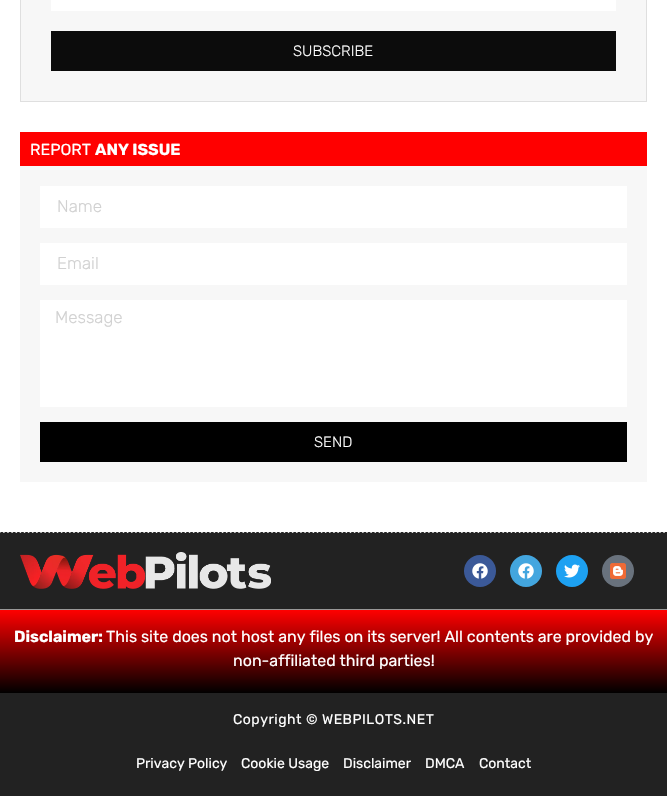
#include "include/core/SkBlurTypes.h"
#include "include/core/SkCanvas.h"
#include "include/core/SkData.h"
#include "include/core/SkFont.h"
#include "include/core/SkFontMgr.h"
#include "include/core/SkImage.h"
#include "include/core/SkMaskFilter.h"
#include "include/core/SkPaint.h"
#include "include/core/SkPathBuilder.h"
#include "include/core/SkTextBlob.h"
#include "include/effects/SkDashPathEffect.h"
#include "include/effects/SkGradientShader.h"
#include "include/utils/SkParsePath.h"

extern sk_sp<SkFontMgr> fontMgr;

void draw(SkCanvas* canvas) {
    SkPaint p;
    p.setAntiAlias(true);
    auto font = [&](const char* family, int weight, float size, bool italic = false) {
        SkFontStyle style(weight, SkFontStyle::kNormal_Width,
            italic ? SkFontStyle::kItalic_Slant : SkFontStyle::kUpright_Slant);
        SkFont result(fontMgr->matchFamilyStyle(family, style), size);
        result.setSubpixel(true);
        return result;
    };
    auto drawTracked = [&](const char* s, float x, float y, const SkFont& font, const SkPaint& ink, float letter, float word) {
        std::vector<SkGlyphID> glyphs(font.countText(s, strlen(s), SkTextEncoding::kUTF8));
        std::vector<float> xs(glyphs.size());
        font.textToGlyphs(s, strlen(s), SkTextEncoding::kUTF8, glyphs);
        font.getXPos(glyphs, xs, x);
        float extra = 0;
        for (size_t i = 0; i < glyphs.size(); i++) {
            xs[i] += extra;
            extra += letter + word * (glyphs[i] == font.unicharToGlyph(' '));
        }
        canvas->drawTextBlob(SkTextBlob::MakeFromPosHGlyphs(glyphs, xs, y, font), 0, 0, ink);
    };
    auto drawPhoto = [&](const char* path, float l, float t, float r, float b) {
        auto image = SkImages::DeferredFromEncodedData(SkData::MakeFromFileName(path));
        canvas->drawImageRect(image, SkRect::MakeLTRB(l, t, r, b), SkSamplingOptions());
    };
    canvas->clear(0xFFFFFFFF);
    p.setColor(0xFFF7F7F7);
    canvas->drawRect(SkRect::MakeLTRB(20.5f, -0.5f, 646.5f, 101.5f), p);
    p.setStyle(SkPaint::kStroke_Style);
    p.setStrokeWidth(1);
    p.setColor(0xFFDFDFDF);
    canvas->drawRect(SkRect::MakeLTRB(20.5f, -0.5f, 646.5f, 101.5f), p);
    p.setStyle(SkPaint::kFill_Style);
    p.setColor(0xFFFFFFFF);
    canvas->drawRect(SkRect::MakeLTRB(51, 0, 616, 11), p);
    p.setColor(0xFF0C0C0C);
    canvas->drawRect(SkRect::MakeLTRB(51, 31, 616, 71), p);
    auto font1 = font("Rubik", 300, 15);
    p.setColor(0xFFFFFFFF);
    canvas->drawString("SUBSCRIBE", 293, 56, font1, p);
    p.setColor(0xFFFF0000);
    canvas->drawRect(SkRect::MakeLTRB(20, 132, 647, 166), p);
    auto font2 = font("Rubik", 400, 16);
    p.setColor(0xFFFFFFFF);
    canvas->drawString("REPORT", 30, 155, font2, p);
    auto font3 = font("Rubik", 700, 16);
    canvas->drawString("ANY ISSUE", 95, 155, font3, p);
    p.setColor(0xFFF7F7F7);
    canvas->drawRect(SkRect::MakeLTRB(20, 166, 647, 482), p);
    p.setColor(0xFFFFFFFF);
    canvas->drawRect(SkRect::MakeLTRB(40, 186, 627, 228), p);
    auto font4 = font("Rubik", 300, 17);
    p.setColor(0xFFD1D1D1);
    canvas->drawString("Name", 57, 212, font4, p);
    p.setColor(0xFFFFFFFF);
    canvas->drawRect(SkRect::MakeLTRB(40, 243, 627, 285), p);
    p.setColor(0xFFD1D1D1);
    canvas->drawString("Email", 57, 269, font4, p);
    p.setColor(0xFFFFFFFF);
    canvas->drawRect(SkRect::MakeLTRB(40, 300, 627, 407), p);
    p.setColor(0xFFD1D1D1);
    canvas->drawString("Message", 55, 323, font4, p);
    p.setColor(0xFF000000);
    canvas->drawRect(SkRect::MakeLTRB(40, 422, 627, 462), p);
    p.setColor(0xFFFFFFFF);
    canvas->drawString("SEND", 314, 447, font1, p);
    p.setColor(0xFF222222);
    canvas->drawRect(SkRect::MakeLTRB(0, 532, 667, 609), p);
    p.setColor(0xFF989898);
    canvas->drawRect(SkRect::MakeLTRB(0, 609, 667, 610), p);
    drawPhoto("media/1.png", 0, 532, 665, 533);
    drawPhoto("media/2.png", 20, 552, 271, 589);
    p.setColor(0xFF3B5998);
    canvas->drawCircle(480, 571, 16, p);
    drawPhoto("media/3.png", 472, 563, 488, 579);
    p.setColor(0xFF43A6DF);
    canvas->drawCircle(526, 571, 16, p);
    drawPhoto("media/4.png", 518, 563, 534, 579);
    p.setColor(0xFF1DA1F2);
    canvas->drawCircle(572, 571, 16, p);
    drawPhoto("media/5.png", 564, 564, 580, 578);
    p.setColor(0xFF69727D);
    canvas->drawCircle(618, 571, 16, p);
    drawPhoto("media/6.png", 610, 563, 626, 579);
    {
        const SkColor colors[] = {0xFFFF0000, 0xFF000000};
        const float stops[] = {0, 1};
        const SkPoint ends[] = {{334, 610}, {334, 693}};
        p.setShader(SkGradientShader::MakeLinear(ends, colors, stops, 2, SkTileMode::kClamp));
        p.setAlpha(255);
    }
    canvas->drawRect(SkRect::MakeLTRB(0, 610, 667, 693), p);
    p.setShader(nullptr);
    p.setColor(0xFFFFFFFF);
    canvas->drawString("Disclaimer:", 14, 642, font3, p);
    canvas->drawString("This site does not host any files on its server! All contents are provided by", 106, 642, font2, p);
    canvas->drawString("non-affiliated third parties!", 233, 666, font2, p);
    p.setColor(0xFF222222);
    canvas->drawRect(SkRect::MakeLTRB(0, 693, 667, 796), p);
    auto font5 = font("Rubik", 400, 14);
    p.setColor(0xFFFFFFFF);
    drawTracked("Copyright © WEBPILOTS.NET", 233, 724, font5, p, 0.5f, 0);
    {
        const struct { const char* s; float x, y; } items[] = {
            {"Privacy Policy", 136, 768},
            {"Cookie Usage", 241, 768},
            {"Disclaimer", 343, 768},
            {"DMCA", 425, 768},
            {"Contact", 479, 768},
        };
        for (auto [s, x, y] : items) {
            canvas->drawString(s, x, y, font5, p);
        }
    }
}
